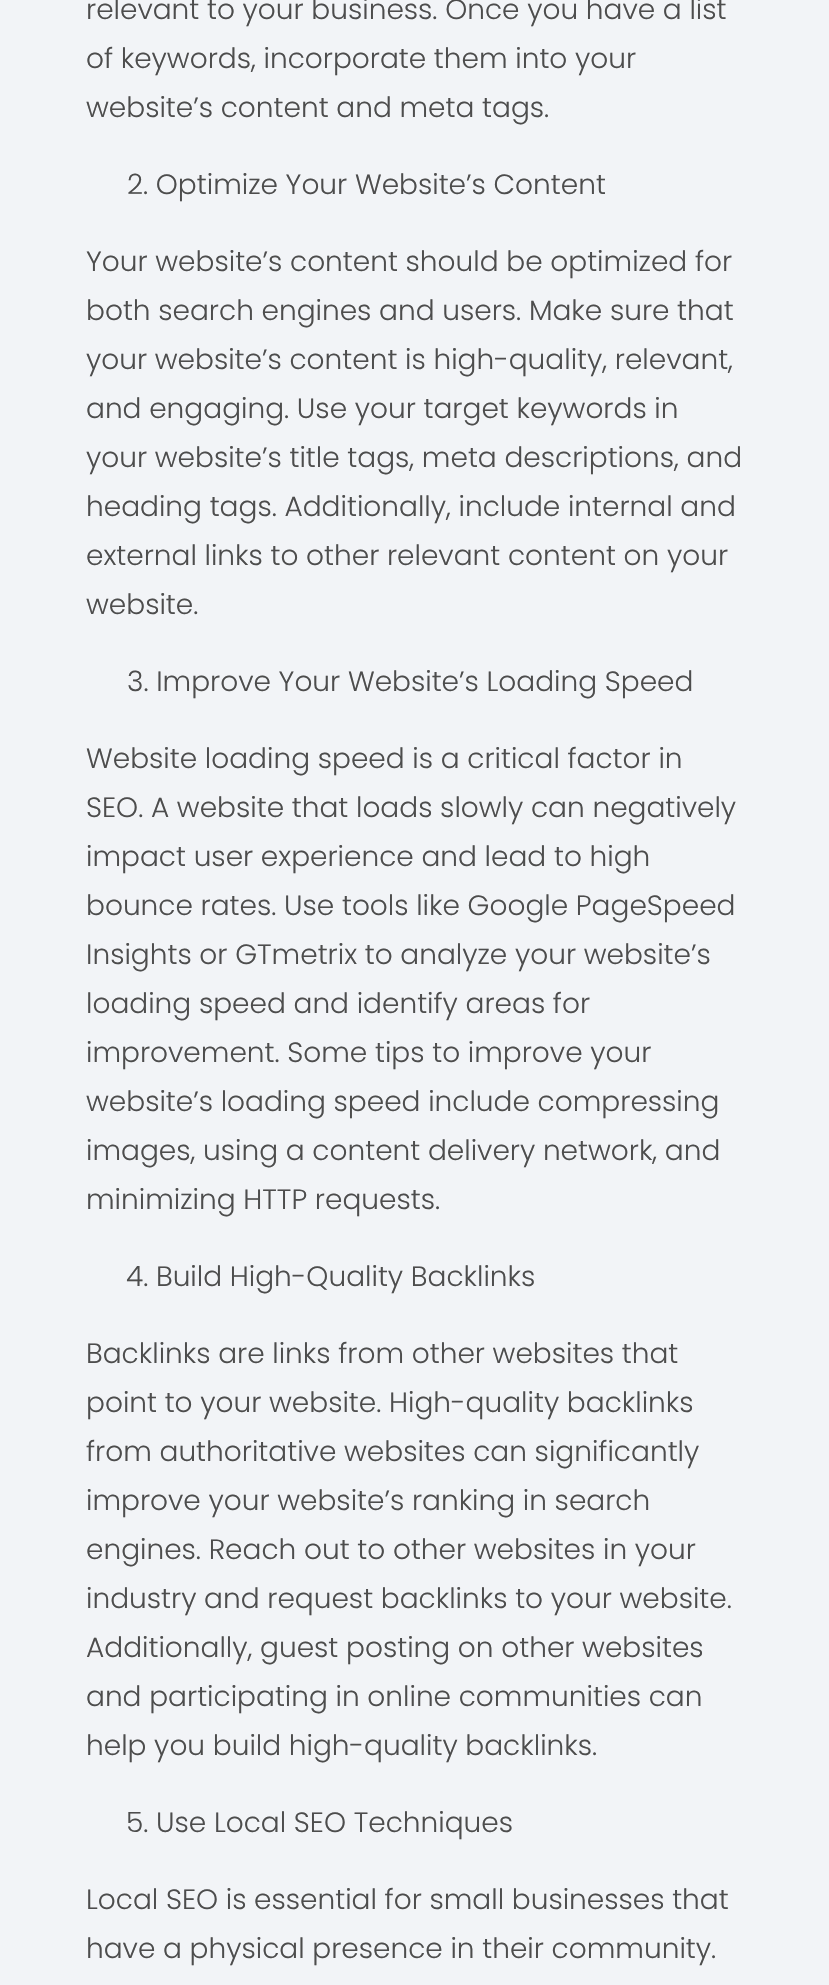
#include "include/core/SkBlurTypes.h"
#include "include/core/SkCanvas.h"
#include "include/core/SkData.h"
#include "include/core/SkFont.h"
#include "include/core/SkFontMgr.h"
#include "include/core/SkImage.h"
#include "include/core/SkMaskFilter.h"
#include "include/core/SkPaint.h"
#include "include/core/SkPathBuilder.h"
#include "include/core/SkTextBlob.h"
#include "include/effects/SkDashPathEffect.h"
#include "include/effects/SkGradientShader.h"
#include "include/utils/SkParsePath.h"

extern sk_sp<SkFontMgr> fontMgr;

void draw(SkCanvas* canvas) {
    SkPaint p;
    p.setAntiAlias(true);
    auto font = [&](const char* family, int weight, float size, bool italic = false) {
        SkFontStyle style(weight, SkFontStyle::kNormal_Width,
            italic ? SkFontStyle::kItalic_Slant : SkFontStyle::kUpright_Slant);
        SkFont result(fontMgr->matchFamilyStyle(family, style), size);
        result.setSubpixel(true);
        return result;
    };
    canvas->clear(0xFFF2F4F7);
    auto font1 = font("Poppins", 300, 28);
    p.setColor(0xFF4D4D4D);
    {
        const struct { const char* s; float x, y; } items[] = {
            {"relevant to your business. Once you have a list", 86, 19},
            {"of keywords, incorporate them into your", 86, 68},
            {"website’s content and meta tags.", 86, 117},
            {"2. Optimize Your Website’s Content", 127, 194},
            {"Your website’s content should be optimized for", 86, 271},
            {"both search engines and users. Make sure that", 86, 320},
            {"your website’s content is high-quality, relevant,", 86, 369},
            {"and engaging. Use your target keywords in", 86, 418},
            {"your website’s title tags, meta descriptions, and", 86, 467},
            {"heading tags. Additionally, include internal and", 86, 516},
            {"external links to other relevant content on your", 86, 565},
            {"website.", 86, 614},
            {"3. Improve Your Website’s Loading Speed", 127, 691},
            {"Website loading speed is a critical factor in", 86, 768},
            {"SEO. A website that loads slowly can negatively", 86, 817},
            {"impact user experience and lead to high", 86, 866},
            {"bounce rates. Use tools like Google PageSpeed", 86, 915},
            {"Insights or GTmetrix to analyze your website’s", 86, 964},
            {"loading speed and identify areas for", 86, 1013},
            {"improvement. Some tips to improve your", 86, 1062},
            {"website’s loading speed include compressing", 86, 1111},
            {"images, using a content delivery network, and", 86, 1160},
            {"minimizing HTTP requests.", 86, 1209},
            {"4. Build High-Quality Backlinks", 126, 1286},
            {"Backlinks are links from other websites that", 86, 1363},
            {"point to your website. High-quality backlinks", 86, 1412},
            {"from authoritative websites can significantly", 86, 1461},
            {"improve your website’s ranking in search", 86, 1510},
            {"engines. Reach out to other websites in your", 86, 1559},
            {"industry and request backlinks to your website.", 86, 1608},
            {"Additionally, guest posting on other websites", 86, 1657},
            {"and participating in online communities can", 86, 1706},
            {"help you build high-quality backlinks.", 86, 1755},
            {"5. Use Local SEO Techniques", 126, 1832},
            {"Local SEO is essential for small businesses that", 86, 1909},
            {"have a physical presence in their community.", 86, 1958},
        };
        for (auto [s, x, y] : items) {
            canvas->drawString(s, x, y, font1, p);
        }
    }
}
